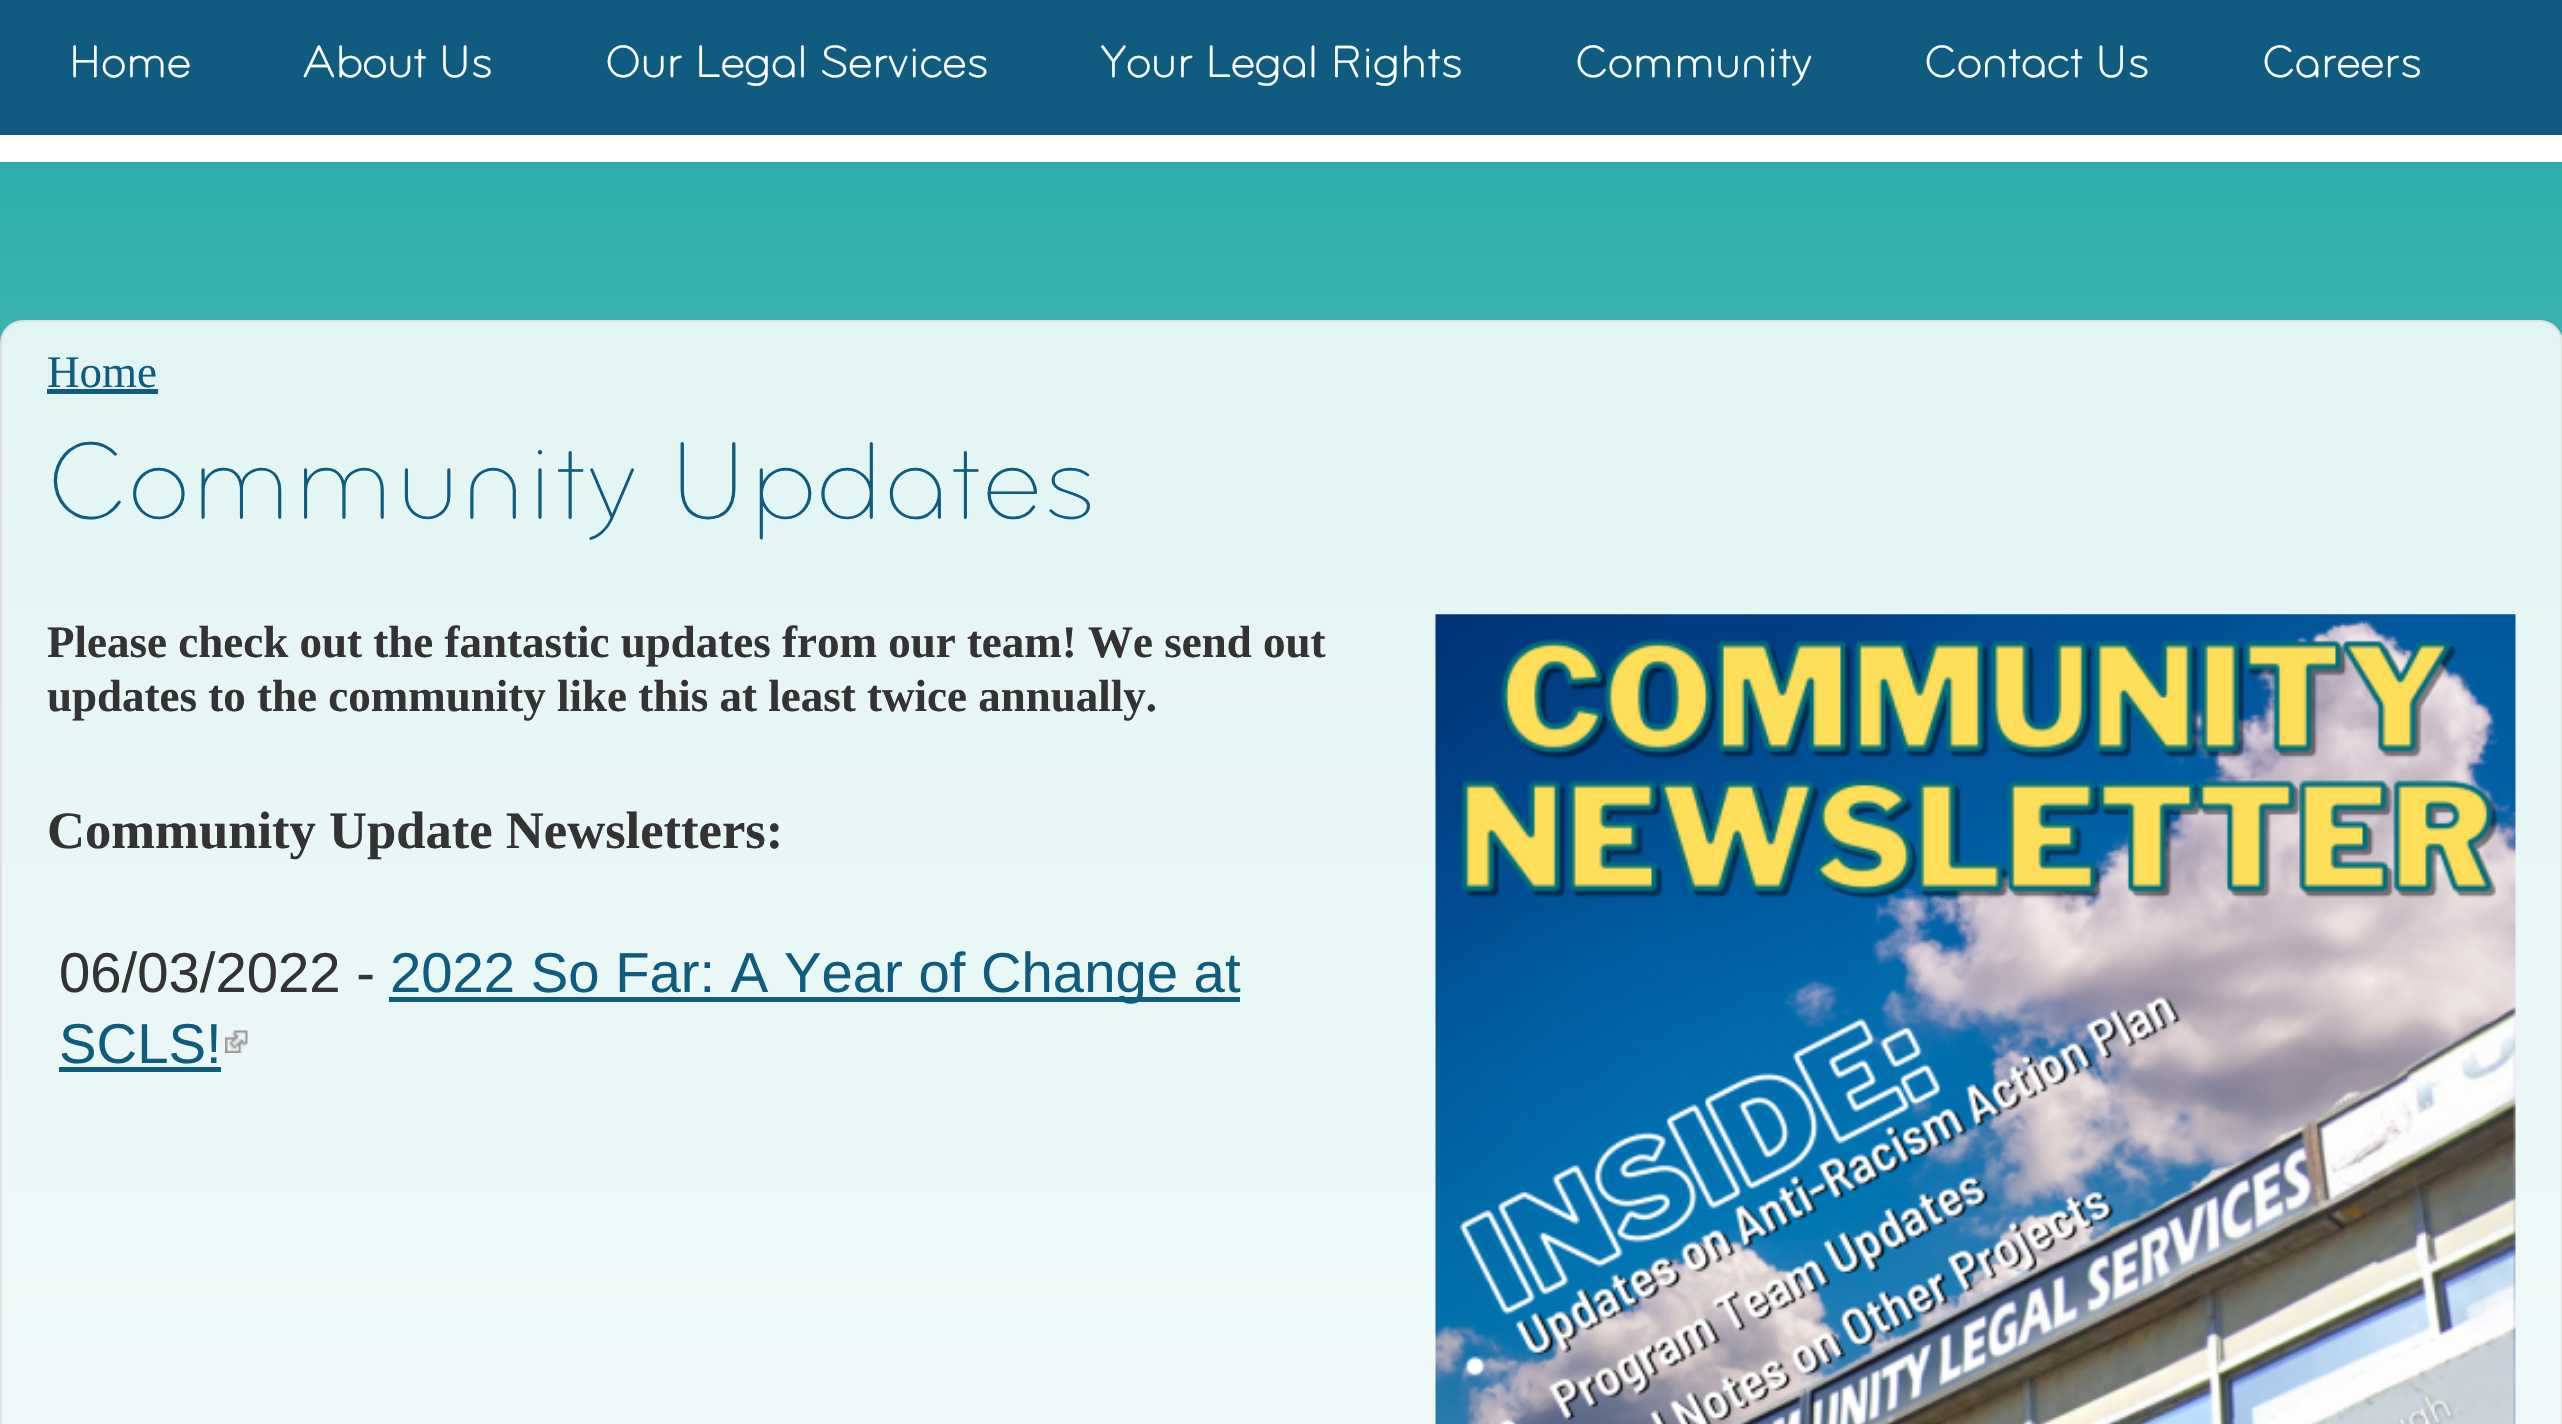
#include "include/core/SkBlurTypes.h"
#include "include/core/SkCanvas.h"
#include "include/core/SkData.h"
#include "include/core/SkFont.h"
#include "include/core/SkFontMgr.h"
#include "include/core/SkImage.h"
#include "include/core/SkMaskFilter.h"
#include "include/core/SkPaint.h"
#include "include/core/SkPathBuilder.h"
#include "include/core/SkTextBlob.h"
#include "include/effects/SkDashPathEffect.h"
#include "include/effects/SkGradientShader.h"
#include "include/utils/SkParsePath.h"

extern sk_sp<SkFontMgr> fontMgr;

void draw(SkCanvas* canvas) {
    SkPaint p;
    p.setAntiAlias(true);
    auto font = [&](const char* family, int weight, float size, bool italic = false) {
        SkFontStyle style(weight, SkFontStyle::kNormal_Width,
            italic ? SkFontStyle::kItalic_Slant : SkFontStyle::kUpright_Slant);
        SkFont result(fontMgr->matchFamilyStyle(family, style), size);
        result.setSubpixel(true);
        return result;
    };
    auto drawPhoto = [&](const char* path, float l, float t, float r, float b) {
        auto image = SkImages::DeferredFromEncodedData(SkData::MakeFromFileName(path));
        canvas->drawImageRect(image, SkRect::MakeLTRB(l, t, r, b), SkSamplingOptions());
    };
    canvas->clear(0xFFFFFFFF);
    {
        const SkColor colors[] = {0xFF009C99, 0xFFFFFFFF};
        const float stops[] = {0, 1};
        const SkPoint ends[] = {{1281, -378}, {1281, 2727}};
        p.setShader(SkGradientShader::MakeLinear(ends, colors, stops, 2, SkTileMode::kClamp));
        p.setAlpha(255);
    }
    canvas->drawRect(SkRect::MakeLTRB(0, 162, 2562, 1424), p);
    p.setShader(nullptr);
    p.setColor(0xFF0F5C80);
    canvas->drawRect(SkRect::MakeLTRB(0, 0, 2562, 135), p);
    auto font1 = font("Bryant", 700, 45);
    p.setColor(0xFFFFFFFF);
    {
        const struct { const char* s; float x, y; } items[] = {
            {"Home", 68, 77},
            {"About Us", 302, 77},
            {"Our Legal Services", 605, 77},
            {"Your Legal Rights", 1100, 77},
            {"Community", 1575, 77},
            {"Contact Us", 1924, 77},
            {"Careers", 2262, 77},
        };
        for (auto [s, x, y] : items) {
            canvas->drawString(s, x, y, font1, p);
        }
    }
    p.setColor(0xD9FFFFFF);
    canvas->drawRoundRect(SkRect::MakeLTRB(1, 321, 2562, 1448), 22, 22, p);
    p.setStyle(SkPaint::kStroke_Style);
    p.setStrokeWidth(2);
    p.setColor(0xFFE0E0E0);
    canvas->drawRoundRect(SkRect::MakeLTRB(1, 321, 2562, 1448), 22, 22, p);
    auto font2 = font("Liberation Serif", 400, 45);
    p.setStyle(SkPaint::kFill_Style);
    p.setColor(0xFF0F5C80);
    canvas->drawString("Home", 47, 387, font2, p);
    canvas->drawRect(SkRect::MakeLTRB(47, 389, 158, 394), p);
    auto font3 = font("Bryant", 300, 112.5f);
    canvas->drawString("Community Updates", 47, 518, font3, p);
    auto font4 = font("Liberation Serif", 700, 45);
    p.setColor(0xFF333333);
    canvas->drawString("Please check out the fantastic updates from our team! We send out", 47, 657, font4, p);
    canvas->drawString("updates to the community like this at least twice annually.", 47, 711, font4, p);
    auto font5 = font("Liberation Serif", 700, 52.6f);
    canvas->drawString("Community Update Newsletters:", 47, 848, font5, p);
    auto font6 = font("Liberation Sans", 400, 56.25f);
    canvas->drawString("06/03/2022 -", 59, 992, font6, p);
    p.setColor(0xFF0F5C80);
    canvas->drawRect(SkRect::MakeLTRB(389, 997, 1240, 1002), p);
    canvas->drawString("2022 So Far: A Year of Change at", 390, 992, font6, p);
    canvas->drawString("SCLS!", 59, 1063, font6, p);
    canvas->drawRect(SkRect::MakeLTRB(59, 1067, 221, 1072), p);
    drawPhoto("media/1.png", 225, 1030, 248, 1053);
    drawPhoto("media/2.png", 1435, 614, 2516, 1424);
}
